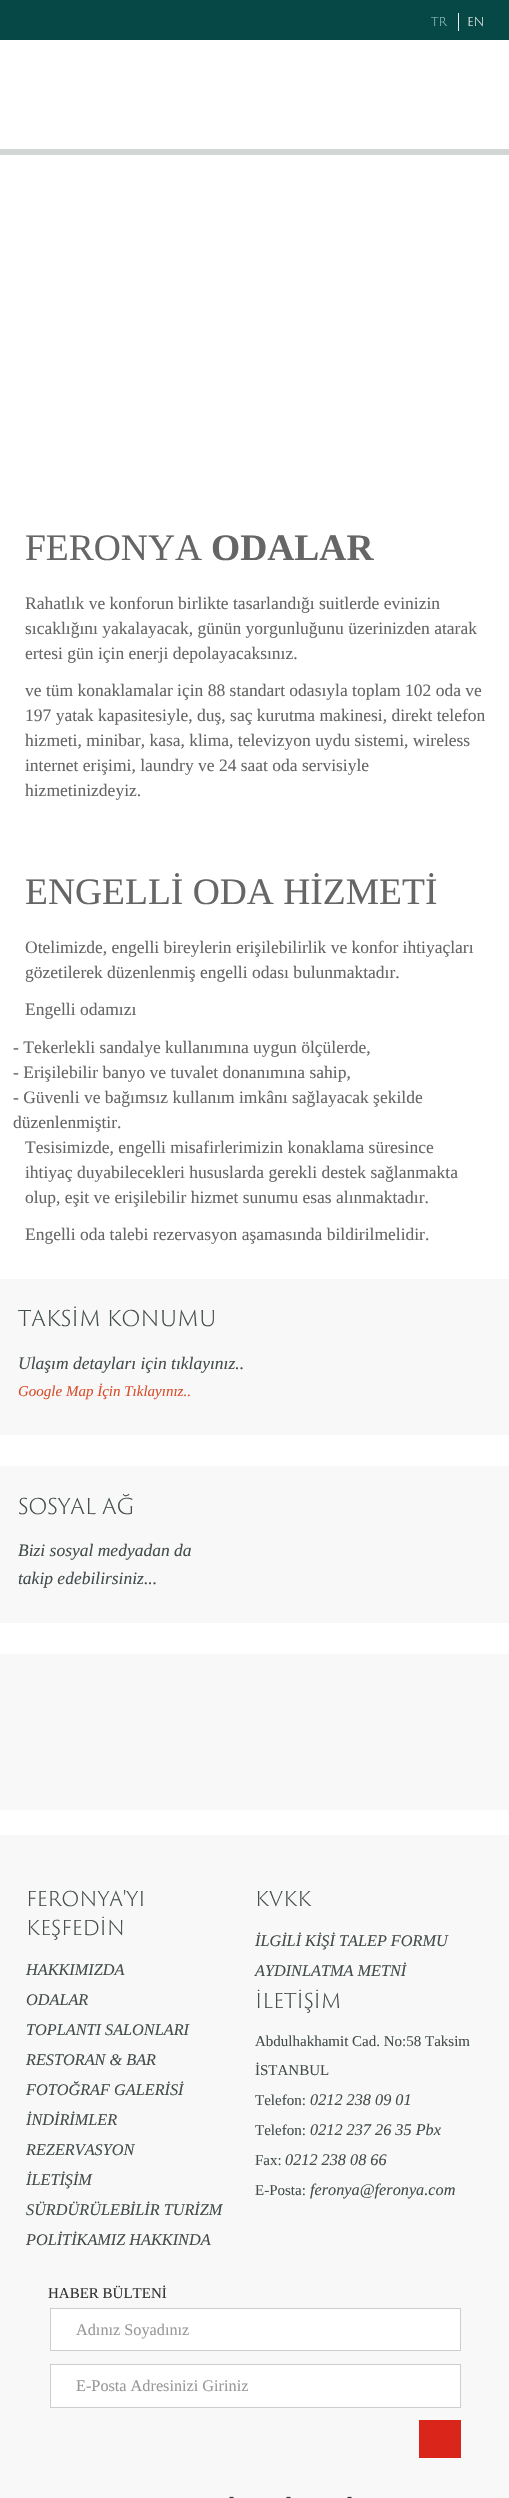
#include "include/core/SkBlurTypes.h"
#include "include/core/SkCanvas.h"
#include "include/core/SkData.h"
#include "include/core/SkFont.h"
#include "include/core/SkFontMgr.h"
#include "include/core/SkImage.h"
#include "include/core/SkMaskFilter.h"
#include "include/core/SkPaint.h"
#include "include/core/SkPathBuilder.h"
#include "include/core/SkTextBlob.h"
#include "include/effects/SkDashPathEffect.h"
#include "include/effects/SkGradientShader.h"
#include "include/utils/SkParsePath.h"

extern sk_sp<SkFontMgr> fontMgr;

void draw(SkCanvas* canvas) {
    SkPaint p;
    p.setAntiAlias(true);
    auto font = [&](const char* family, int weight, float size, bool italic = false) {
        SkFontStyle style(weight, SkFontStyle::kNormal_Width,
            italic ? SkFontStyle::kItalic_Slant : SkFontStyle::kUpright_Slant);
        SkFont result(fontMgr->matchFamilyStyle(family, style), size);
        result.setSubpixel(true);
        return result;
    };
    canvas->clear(0xFFFFFFFF);
    p.setColor(0xFF064846);
    canvas->drawRect(SkRect::MakeLTRB(0, 0, 509, 40), p);
    auto font1 = font("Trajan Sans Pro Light", 300, 12);
    p.setColor(0xFF91BFBD);
    canvas->drawString("TR", 431, 26, font1, p);
    p.setColor(0xFFEEEEED);
    canvas->drawString("EN", 467, 26, font1, p);
    canvas->drawRect(SkRect::MakeLTRB(458, 13, 459, 31), p);
    p.setColor(0xFFD1D6D6);
    canvas->drawRect(SkRect::MakeLTRB(0, 149, 509, 155), p);
    auto font2 = font("Liberation Serif", 400, 37.5f);
    p.setColor(0xFF666666);
    canvas->drawString("FERONYA", 25, 560, font2, p);
    auto font3 = font("Liberation Serif", 700, 37.5f);
    canvas->drawString("ODALAR", 211, 560, font3, p);
    auto font4 = font("Liberation Serif", 400, 17.5f);
    {
        const struct { const char* s; float x, y; } items[] = {
            {"Rahatlık ve konforun birlikte tasarlandığı suitlerde evinizin", 25, 609},
            {"sıcaklığını yakalayacak, günün yorgunluğunu üzerinizden atarak", 25, 634},
            {"ertesi gün için enerji depolayacaksınız.", 25, 659},
            {"ve tüm konaklamalar için 88 standart odasıyla toplam 102 oda ve", 25, 696},
            {"197 yatak kapasitesiyle, duş, saç kurutma makinesi, direkt telefon", 25, 721},
            {"hizmeti, minibar, kasa, klima, televizyon uydu sistemi, wireless", 25, 746},
            {"internet erişimi, laundry ve 24 saat oda servisiyle", 25, 771},
            {"hizmetinizdeyiz.", 25, 796},
        };
        for (auto [s, x, y] : items) {
            canvas->drawString(s, x, y, font4, p);
        }
    }
    canvas->drawString("ENGELLİ ODA HİZMETİ", 25, 904, font2, p);
    {
        const struct { const char* s; float x, y; } items[] = {
            {"Otelimizde, engelli bireylerin erişilebilirlik ve konfor ihtiyaçları", 25, 953},
            {"gözetilerek düzenlenmiş engelli odası bulunmaktadır.", 25, 978},
            {"Engelli odamızı", 25, 1015},
            {"- Tekerlekli sandalye kullanımına uygun ölçülerde,", 13, 1053},
            {"- Erişilebilir banyo ve tuvalet donanımına sahip,", 13, 1078},
            {"- Güvenli ve bağımsız kullanım imkânı sağlayacak şekilde", 13, 1103},
            {"düzenlenmiştir.", 13, 1128},
            {"Tesisimizde, engelli misafirlerimizin konaklama süresince", 25, 1153},
            {"ihtiyaç duyabilecekleri hususlarda gerekli destek sağlanmakta", 25, 1178},
            {"olup, eşit ve erişilebilir hizmet sunumu esas alınmaktadır.", 25, 1203},
            {"Engelli oda talebi rezervasyon aşamasında bildirilmelidir.", 25, 1240},
        };
        for (auto [s, x, y] : items) {
            canvas->drawString(s, x, y, font4, p);
        }
    }
    p.setColor(0xFFF8F8F8);
    canvas->drawRect(SkRect::MakeLTRB(0, 1279, 509, 1435), p);
    auto font5 = font("Trajan Sans Pro Light", 300, 21.25f);
    p.setColor(0xFF454D4D);
    canvas->drawString("TAKSİM KONUMU", 18, 1326, font5, p);
    auto font6 = font("Liberation Serif", 400, 17.5f, true);
    canvas->drawString("Ulaşım detayları için tıklayınız..", 18, 1369, font6, p);
    auto font7 = font("Liberation Serif", 400, 15, true);
    p.setColor(0xFFD94E2B);
    canvas->drawString("Google Map İçin Tıklayınız..", 18, 1396, font7, p);
    p.setColor(0xFFF8F8F8);
    canvas->drawRect(SkRect::MakeLTRB(0, 1466, 509, 1623), p);
    p.setColor(0xFF454D4D);
    canvas->drawString("SOSYAL AĞ", 18, 1514, font5, p);
    canvas->drawString("Bizi sosyal medyadan da", 18, 1556, font6, p);
    canvas->drawString("takip edebilirsiniz...", 18, 1584, font6, p);
    p.setColor(0xFFF8F8F8);
    canvas->drawRect(SkRect::MakeLTRB(0, 1654, 509, 1810), p);
    canvas->drawRect(SkRect::MakeLTRB(0, 1835, 509, 2498), p);
    auto font8 = font("Trajan Sans Pro Light", 300, 20);
    p.setColor(0xFF454D4D);
    canvas->drawString("FERONYA'YI", 26, 1906, font8, p);
    canvas->drawString("KEŞFEDİN", 26, 1935, font8, p);
    auto font9 = font("Liberation Serif", 400, 16.25f, true);
    {
        const struct { const char* s; float x, y; } items[] = {
            {"HAKKIMIZDA", 26, 1975},
            {"ODALAR", 26, 2005},
            {"TOPLANTI SALONLARI", 26, 2035},
            {"RESTORAN & BAR", 26, 2065},
            {"FOTOĞRAF GALERİSİ", 26, 2095},
            {"İNDİRİMLER", 26, 2125},
            {"REZERVASYON", 26, 2155},
            {"İLETİŞİM", 26, 2185},
            {"SÜRDÜRÜLEBİLİR TURİZM", 26, 2215},
            {"POLİTİKAMIZ HAKKINDA", 26, 2245},
        };
        for (auto [s, x, y] : items) {
            canvas->drawString(s, x, y, font9, p);
        }
    }
    canvas->drawString("KVKK", 255, 1906, font8, p);
    canvas->drawString("İLGİLİ KİŞİ TALEP FORMU", 255, 1946, font9, p);
    canvas->drawString("AYDINLATMA METNİ", 255, 1976, font9, p);
    canvas->drawString("İLETİŞİM", 255, 2008, font8, p);
    auto font10 = font("Liberation Serif", 400, 15);
    {
        const struct { const char* s; float x, y; } items[] = {
            {"Abdulhakhamit Cad. No:58 Taksim", 255, 2046},
            {"İSTANBUL", 255, 2075},
            {"Telefon:", 255, 2105},
        };
        for (auto [s, x, y] : items) {
            canvas->drawString(s, x, y, font10, p);
        }
    }
    canvas->drawString("0212 238 09 01", 310, 2105, font9, p);
    canvas->drawString("Telefon:", 255, 2135, font10, p);
    canvas->drawString("0212 237 26 35 Pbx", 310, 2135, font9, p);
    canvas->drawString("Fax:", 255, 2165, font10, p);
    canvas->drawString("0212 238 08 66", 285, 2165, font9, p);
    canvas->drawString("E-Posta:", 255, 2195, font10, p);
    canvas->drawString("feronya@feronya.com", 310, 2195, font9, p);
    p.setColor(0xFF333333);
    canvas->drawString("HABER BÜLTENİ", 48, 2298, font10, p);
    p.setColor(0xFFFFFFFF);
    canvas->drawRect(SkRect::MakeLTRB(50.5f, 2308.5f, 460.5f, 2350.5f), p);
    p.setStyle(SkPaint::kStroke_Style);
    p.setStrokeWidth(1);
    p.setColor(0xFFCDCDCD);
    canvas->drawRect(SkRect::MakeLTRB(50.5f, 2308.5f, 460.5f, 2350.5f), p);
    auto font11 = font("Liberation Serif", 400, 16.25f);
    p.setStyle(SkPaint::kFill_Style);
    p.setColor(0xFF999999);
    canvas->drawString("Adınız Soyadınız", 76, 2335, font11, p);
    p.setColor(0xFFFFFFFF);
    canvas->drawRect(SkRect::MakeLTRB(50.5f, 2364.5f, 460.5f, 2407.5f), p);
    p.setStyle(SkPaint::kStroke_Style);
    p.setColor(0xFFCDCDCD);
    canvas->drawRect(SkRect::MakeLTRB(50.5f, 2364.5f, 460.5f, 2407.5f), p);
    p.setStyle(SkPaint::kFill_Style);
    p.setColor(0xFF999999);
    canvas->drawString("E-Posta Adresinizi Giriniz", 76, 2391, font11, p);
    p.setColor(0xFFDA251A);
    canvas->drawRect(SkRect::MakeLTRB(419, 2420, 461, 2458), p);
    p.setColor(0xFF333333);
    {
        const struct { const char* s; float x, y; } items[] = {
            {"-", 229, 2501},
            {"-", 286, 2501},
            {"-", 347, 2501},
        };
        for (auto [s, x, y] : items) {
            canvas->drawString(s, x, y, font10, p);
        }
    }
}
